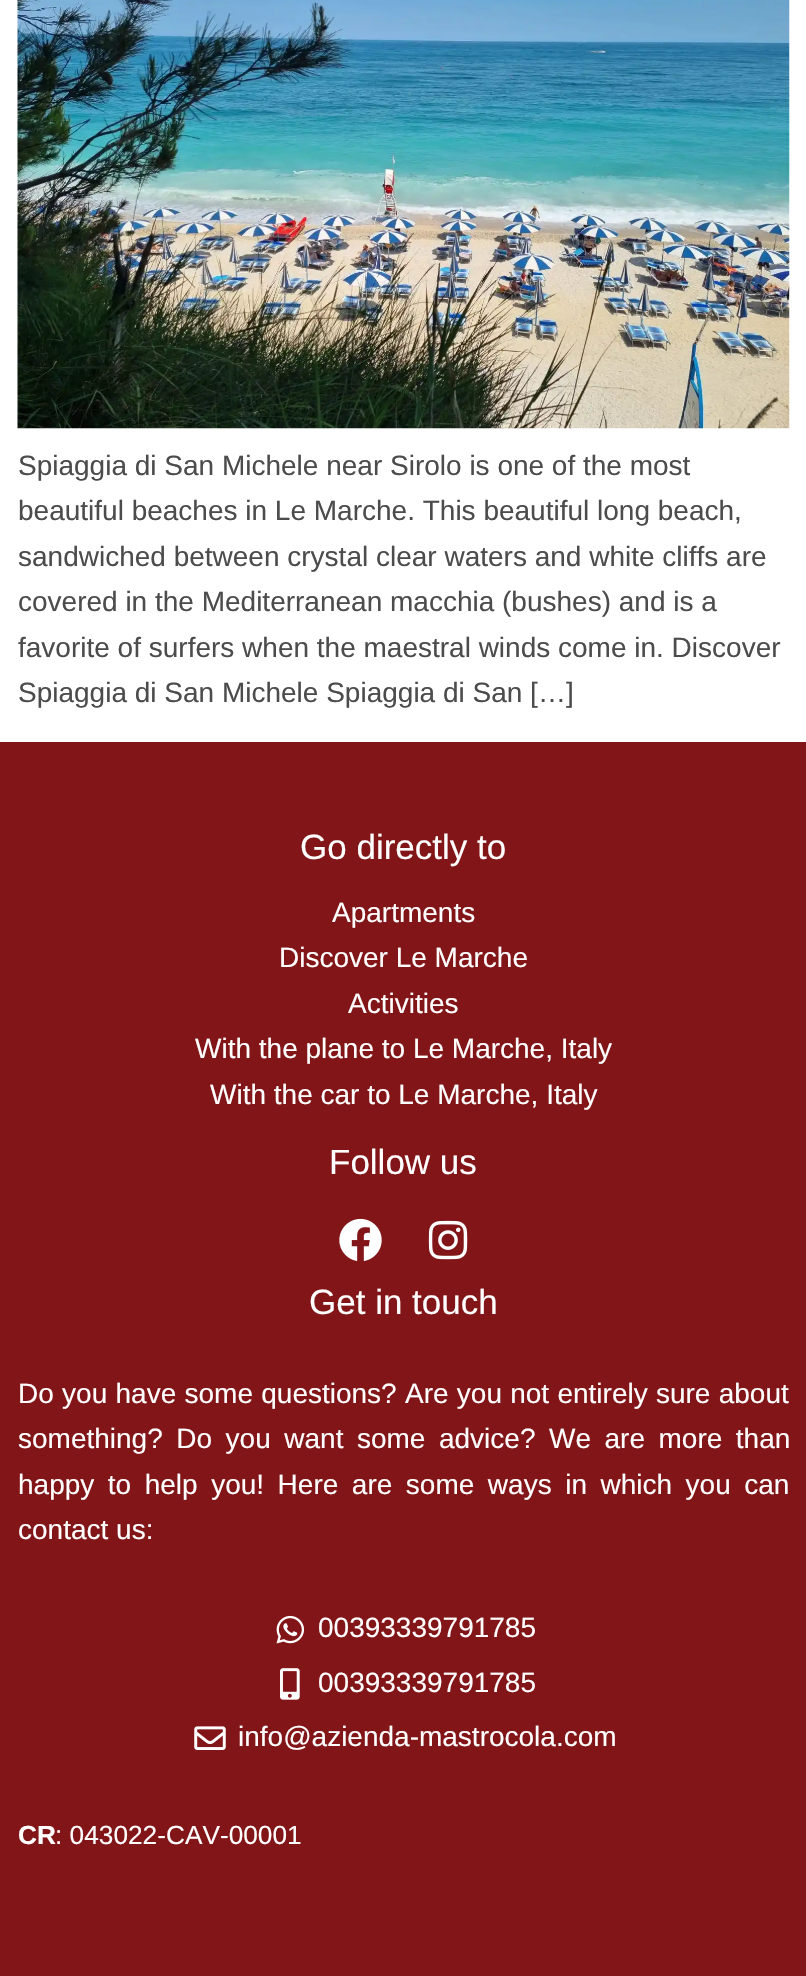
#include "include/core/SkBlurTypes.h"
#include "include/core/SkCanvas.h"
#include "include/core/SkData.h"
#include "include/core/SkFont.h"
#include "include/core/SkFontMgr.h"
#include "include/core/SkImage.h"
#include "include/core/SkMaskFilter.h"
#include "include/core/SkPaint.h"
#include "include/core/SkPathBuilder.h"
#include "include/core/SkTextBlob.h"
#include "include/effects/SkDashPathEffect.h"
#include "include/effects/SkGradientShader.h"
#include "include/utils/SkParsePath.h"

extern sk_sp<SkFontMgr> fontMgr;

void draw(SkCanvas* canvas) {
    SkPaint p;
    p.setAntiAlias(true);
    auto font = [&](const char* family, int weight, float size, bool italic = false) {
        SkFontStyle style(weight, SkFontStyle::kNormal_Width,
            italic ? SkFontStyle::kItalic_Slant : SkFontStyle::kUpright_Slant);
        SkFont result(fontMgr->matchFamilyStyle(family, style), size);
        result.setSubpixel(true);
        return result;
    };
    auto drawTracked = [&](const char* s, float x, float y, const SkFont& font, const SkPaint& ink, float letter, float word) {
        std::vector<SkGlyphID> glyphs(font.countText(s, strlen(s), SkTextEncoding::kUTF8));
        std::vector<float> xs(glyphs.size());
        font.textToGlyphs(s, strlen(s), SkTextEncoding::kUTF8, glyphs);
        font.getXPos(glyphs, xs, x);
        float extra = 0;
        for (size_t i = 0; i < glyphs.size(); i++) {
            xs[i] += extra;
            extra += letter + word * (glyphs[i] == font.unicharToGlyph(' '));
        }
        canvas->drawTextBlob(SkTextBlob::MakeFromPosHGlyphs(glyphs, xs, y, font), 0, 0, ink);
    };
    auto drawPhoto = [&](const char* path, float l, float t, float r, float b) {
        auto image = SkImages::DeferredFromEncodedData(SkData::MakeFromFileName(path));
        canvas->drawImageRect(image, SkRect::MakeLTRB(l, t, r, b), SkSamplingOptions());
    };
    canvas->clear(0xFFFFFFFF);
    drawPhoto("media/1.png", 17, 0, 790, 429);
    auto font1 = font("Liberation Sans", 400, 28);
    p.setColor(0xFF4C4C4C);
    {
        const struct { const char* s; float x, y; } items[] = {
            {"Spiaggia di San Michele near Sirolo is one of the most", 18, 475},
            {"beautiful beaches in Le Marche. This beautiful long beach,", 18, 520},
            {"sandwiched between crystal clear waters and white cliffs are", 18, 566},
            {"covered in the Mediterranean macchia (bushes) and is a", 18, 611},
            {"favorite of surfers when the maestral winds come in. Discover", 18, 657},
            {"Spiaggia di San Michele Spiaggia di San […]", 18, 702},
        };
        for (auto [s, x, y] : items) {
            canvas->drawString(s, x, y, font1, p);
        }
    }
    p.setColor(0xFF821517);
    canvas->drawRect(SkRect::MakeLTRB(0, 742, 806, 1976), p);
    auto font2 = font("Liberation Sans", 400, 35);
    p.setColor(0xFFFFFFFF);
    canvas->drawString("Go directly to", 300, 859, font2, p);
    {
        const struct { const char* s; float x, y; } items[] = {
            {"Apartments", 332, 922},
            {"Discover Le Marche", 279, 967},
            {"Activities", 348, 1013},
            {"With the plane to Le Marche, Italy", 195, 1058},
            {"With the car to Le Marche, Italy", 210, 1104},
        };
        for (auto [s, x, y] : items) {
            canvas->drawString(s, x, y, font1, p);
        }
    }
    canvas->drawString("Follow us", 329, 1174, font2, p);
    drawPhoto("media/2.png", 339, 1218, 382, 1261);
    drawPhoto("media/3.png", 428, 1220, 468, 1260);
    canvas->drawString("Get in touch", 309, 1314, font2, p);
    drawTracked("Do you have some questions? Are you not entirely sure about", 18, 1403, font1, p, 0, 0.5f);
    drawTracked("something? Do you want some advice? We are more than", 18, 1448, font1, p, 0, 5.75f);
    drawTracked("happy to help you! Here are some ways in which you can", 18, 1494, font1, p, 0, 5.75f);
    canvas->drawString("contact us:", 18, 1539, font1, p);
    drawPhoto("media/4.png", 276, 1615, 305, 1644);
    canvas->drawString("00393339791785", 318, 1637, font1, p);
    drawPhoto("media/5.png", 280, 1668, 300, 1700);
    canvas->drawString("00393339791785", 318, 1692, font1, p);
    drawPhoto("media/6.png", 194, 1726, 226, 1750);
    canvas->drawString("info@azienda-mastrocola.com", 238, 1746, font1, p);
    auto font3 = font("Liberation Sans", 700, 26.25f);
    canvas->drawString("CR", 18, 1844, font3, p);
    auto font4 = font("Liberation Sans", 400, 26.25f);
    canvas->drawString(": 043022-CAV-00001", 55, 1844, font4, p);
}
